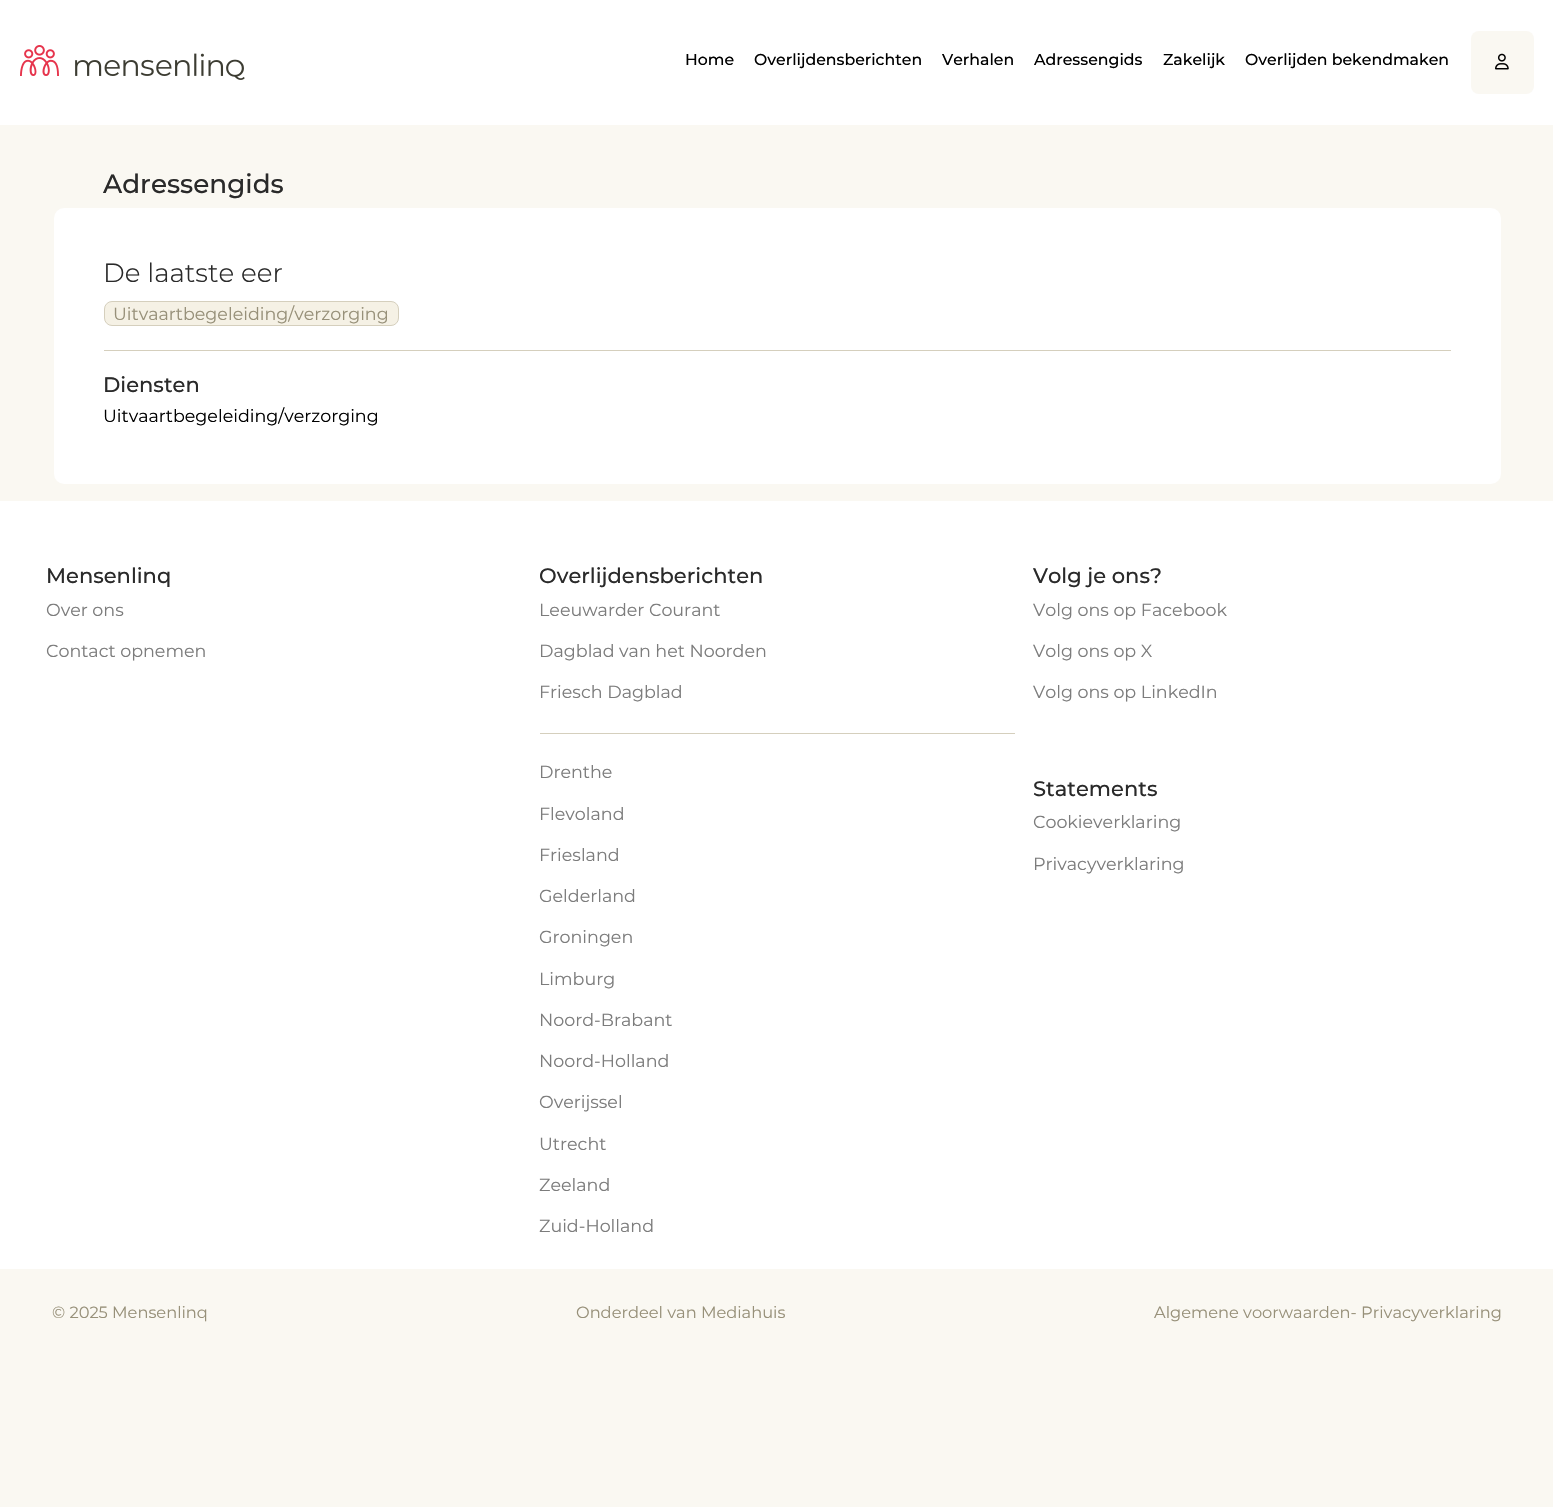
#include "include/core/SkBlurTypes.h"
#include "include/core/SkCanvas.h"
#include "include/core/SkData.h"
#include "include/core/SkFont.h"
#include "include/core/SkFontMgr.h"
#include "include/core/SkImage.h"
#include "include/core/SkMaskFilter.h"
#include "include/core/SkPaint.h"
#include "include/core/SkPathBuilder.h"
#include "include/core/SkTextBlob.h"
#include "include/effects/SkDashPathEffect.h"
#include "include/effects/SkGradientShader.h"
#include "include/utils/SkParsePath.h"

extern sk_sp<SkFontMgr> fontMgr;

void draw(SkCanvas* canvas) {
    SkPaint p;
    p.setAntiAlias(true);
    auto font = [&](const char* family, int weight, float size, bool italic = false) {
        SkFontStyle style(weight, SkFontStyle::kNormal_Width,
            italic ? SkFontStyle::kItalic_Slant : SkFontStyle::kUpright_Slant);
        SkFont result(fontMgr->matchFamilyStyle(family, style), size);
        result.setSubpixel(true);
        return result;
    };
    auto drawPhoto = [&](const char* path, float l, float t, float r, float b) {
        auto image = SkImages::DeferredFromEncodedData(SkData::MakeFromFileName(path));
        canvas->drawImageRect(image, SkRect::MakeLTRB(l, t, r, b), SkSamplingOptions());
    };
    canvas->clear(0xFFFAF8F2);
    p.setColor(0xFFFFFFFF);
    canvas->drawRect(SkRect::MakeLTRB(0, 0, 1553, 125), p);
    drawPhoto("media/1.png", 20, 45, 245, 80);
    auto font1 = font("Montserrat", 500, 15.75f);
    p.setColor(0xFF000000);
    {
        const struct { const char* s; float x, y; } items[] = {
            {"Home", 685, 65},
            {"Overlijdensberichten", 754, 65},
            {"Verhalen", 942, 65},
            {"Adressengids", 1034, 65},
            {"Zakelijk", 1163, 65},
            {"Overlijden bekendmaken", 1245, 65},
        };
        for (auto [s, x, y] : items) {
            canvas->drawString(s, x, y, font1, p);
        }
    }
    p.setColor(0xFFFAF8F2);
    canvas->drawRoundRect(SkRect::MakeLTRB(1471, 31, 1534, 94), 8, 8, p);
    drawPhoto("media/2.png", 1495, 53, 1509, 70);
    auto font2 = font("Montserrat", 500, 26.25f);
    p.setColor(0xFF2A2A2A);
    canvas->drawString("Adressengids", 103, 193, font2, p);
    p.setColor(0xFFFFFFFF);
    canvas->drawRoundRect(SkRect::MakeLTRB(54, 208, 1501, 484), 10, 10, p);
    auto font3 = font("Montserrat", 300, 26.25f);
    p.setColor(0xFF2A2A2A);
    canvas->drawString("De laatste eer", 103, 282, font3, p);
    p.setColor(0xFFF5F1E5);
    canvas->drawRoundRect(SkRect::MakeLTRB(104.5f, 301.5f, 398.5f, 325.5f), 7.5f, 7.5f, p);
    p.setStyle(SkPaint::kStroke_Style);
    p.setStrokeWidth(1);
    p.setColor(0xFFD5CFBD);
    canvas->drawRoundRect(SkRect::MakeLTRB(104.5f, 301.5f, 398.5f, 325.5f), 7.5f, 7.5f, p);
    auto font4 = font("Montserrat", 400, 17.5f);
    p.setStyle(SkPaint::kFill_Style);
    p.setColor(0xFF979079);
    canvas->drawString("Uitvaartbegeleiding/verzorging", 113, 320, font4, p);
    p.setColor(0xFFD5CFBD);
    canvas->drawRect(SkRect::MakeLTRB(104, 350, 1451, 351), p);
    auto font5 = font("Montserrat", 500, 21);
    p.setColor(0xFF2A2A2A);
    canvas->drawString("Diensten", 103, 392, font5, p);
    p.setColor(0xFF000000);
    canvas->drawString("Uitvaartbegeleiding/verzorging", 103, 422, font4, p);
    p.setColor(0xFFFFFFFF);
    canvas->drawRect(SkRect::MakeLTRB(0, 501, 1553, 1269), p);
    p.setColor(0xFF2A2A2A);
    canvas->drawString("Mensenlinq", 46, 583, font5, p);
    p.setColor(0xFF7C7C7C);
    canvas->drawString("Over ons", 46, 616, font4, p);
    canvas->drawString("Contact opnemen", 46, 657, font4, p);
    p.setColor(0xFF2A2A2A);
    canvas->drawString("Overlijdensberichten", 539, 583, font5, p);
    p.setColor(0xFF7C7C7C);
    {
        const struct { const char* s; float x, y; } items[] = {
            {"Leeuwarder Courant", 539, 616},
            {"Dagblad van het Noorden", 539, 657},
            {"Friesch Dagblad", 539, 698},
        };
        for (auto [s, x, y] : items) {
            canvas->drawString(s, x, y, font4, p);
        }
    }
    p.setColor(0xFFD5CFBD);
    canvas->drawRect(SkRect::MakeLTRB(540, 733, 1015, 734), p);
    p.setColor(0xFF7C7C7C);
    {
        const struct { const char* s; float x, y; } items[] = {
            {"Drenthe", 539, 778},
            {"Flevoland", 539, 820},
            {"Friesland", 539, 861},
            {"Gelderland", 539, 902},
            {"Groningen", 539, 943},
            {"Limburg", 539, 985},
            {"Noord-Brabant", 539, 1026},
            {"Noord-Holland", 539, 1067},
            {"Overijssel", 539, 1108},
            {"Utrecht", 539, 1150},
            {"Zeeland", 539, 1191},
            {"Zuid-Holland", 539, 1232},
        };
        for (auto [s, x, y] : items) {
            canvas->drawString(s, x, y, font4, p);
        }
    }
    p.setColor(0xFF2A2A2A);
    canvas->drawString("Volg je ons?", 1033, 583, font5, p);
    p.setColor(0xFF7C7C7C);
    {
        const struct { const char* s; float x, y; } items[] = {
            {"Volg ons op Facebook", 1033, 616},
            {"Volg ons op X", 1033, 657},
            {"Volg ons op LinkedIn", 1033, 698},
        };
        for (auto [s, x, y] : items) {
            canvas->drawString(s, x, y, font4, p);
        }
    }
    p.setColor(0xFF2A2A2A);
    canvas->drawString("Statements", 1033, 796, font5, p);
    p.setColor(0xFF7C7C7C);
    canvas->drawString("Cookieverklaring", 1033, 828, font4, p);
    canvas->drawString("Privacyverklaring", 1033, 870, font4, p);
    auto font6 = font("Montserrat", 400, 16.25f);
    p.setColor(0xFF979079);
    {
        const struct { const char* s; float x, y; } items[] = {
            {"© 2025 Mensenlinq", 52, 1318},
            {"Onderdeel van Mediahuis", 576, 1318},
            {"Algemene voorwaarden- Privacyverklaring", 1154, 1318},
        };
        for (auto [s, x, y] : items) {
            canvas->drawString(s, x, y, font6, p);
        }
    }
}
